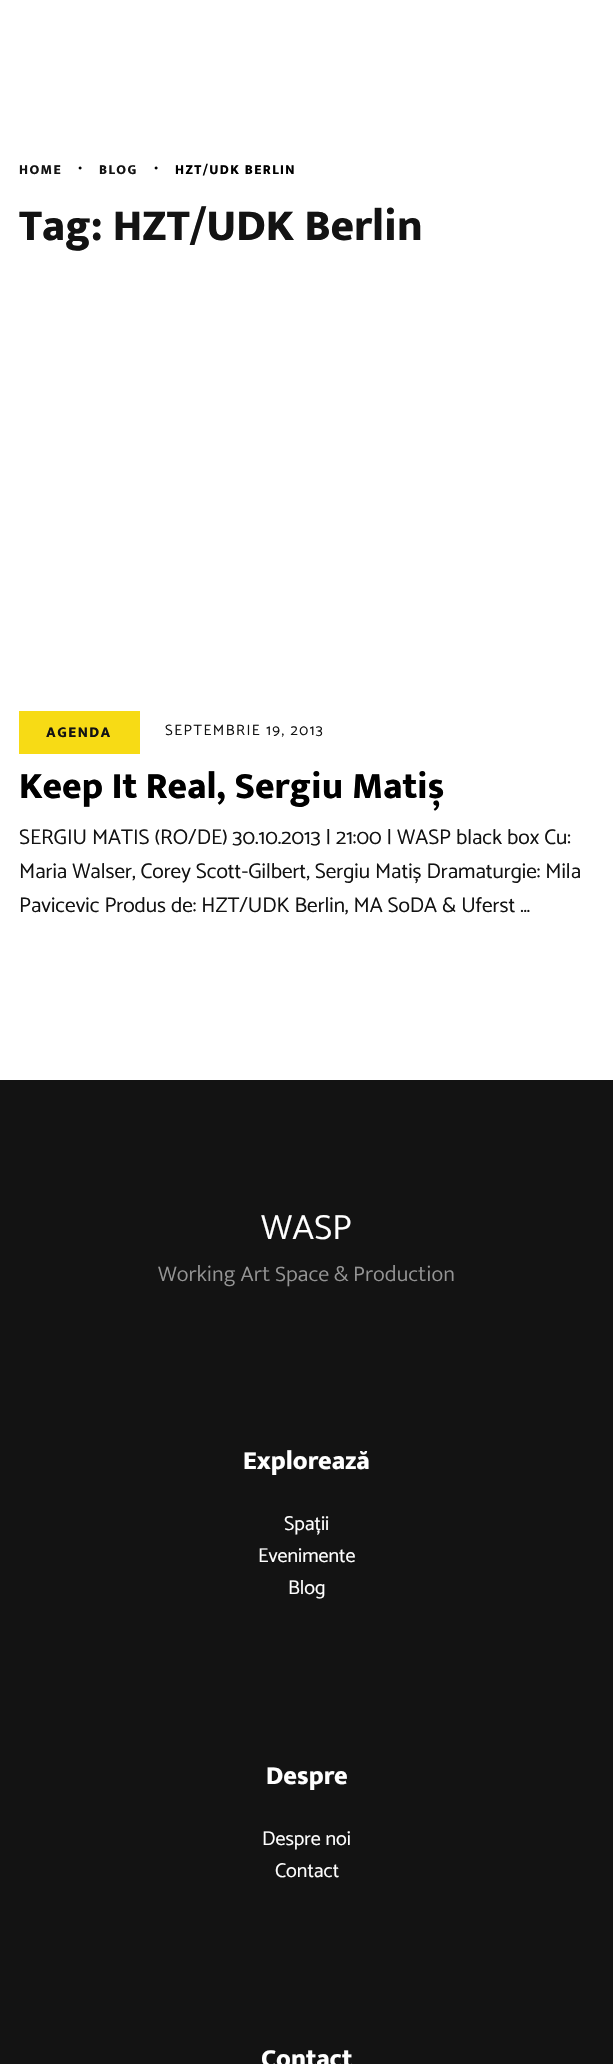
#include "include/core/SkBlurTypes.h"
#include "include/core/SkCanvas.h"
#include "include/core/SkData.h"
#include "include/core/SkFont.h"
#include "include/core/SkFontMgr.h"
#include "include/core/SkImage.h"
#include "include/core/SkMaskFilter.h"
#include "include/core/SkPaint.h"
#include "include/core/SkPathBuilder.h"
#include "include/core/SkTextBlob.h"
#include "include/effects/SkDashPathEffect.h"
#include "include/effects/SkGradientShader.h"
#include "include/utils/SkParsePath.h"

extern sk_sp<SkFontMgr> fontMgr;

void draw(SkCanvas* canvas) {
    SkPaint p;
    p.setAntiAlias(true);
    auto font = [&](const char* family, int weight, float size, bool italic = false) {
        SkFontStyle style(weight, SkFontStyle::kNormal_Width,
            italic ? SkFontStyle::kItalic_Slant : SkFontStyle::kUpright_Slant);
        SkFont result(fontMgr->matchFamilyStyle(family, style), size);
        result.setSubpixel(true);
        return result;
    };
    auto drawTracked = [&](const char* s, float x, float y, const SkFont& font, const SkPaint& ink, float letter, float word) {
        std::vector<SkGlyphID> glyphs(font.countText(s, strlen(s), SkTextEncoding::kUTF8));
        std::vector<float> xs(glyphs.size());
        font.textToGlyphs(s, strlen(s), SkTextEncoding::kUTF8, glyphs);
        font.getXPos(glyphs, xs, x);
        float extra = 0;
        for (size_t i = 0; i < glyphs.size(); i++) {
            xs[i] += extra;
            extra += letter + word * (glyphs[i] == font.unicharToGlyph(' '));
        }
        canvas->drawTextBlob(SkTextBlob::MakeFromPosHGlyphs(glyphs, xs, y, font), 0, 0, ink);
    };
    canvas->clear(0xFFFFFFFF);
    auto font1 = font("Mukta", 800, 13.75f);
    p.setColor(0xFF131313);
    drawTracked("HOME", 19, 174, font1, p, 1.4f, 0);
    auto font2 = font("Liberation Serif", 400, 12);
    p.setColor(0xFF000000);
    drawTracked("•", 78, 172, font2, p, 1.4f, 0);
    p.setColor(0xFF131313);
    drawTracked("BLOG", 99, 174, font1, p, 1.4f, 0);
    p.setColor(0xFF000000);
    drawTracked("•", 154, 172, font2, p, 1.4f, 0);
    drawTracked("HZT/UDK BERLIN", 175, 174, font1, p, 1.4f, 0);
    auto font3 = font("Mukta", 800, 45);
    p.setColor(0xFF131313);
    canvas->drawString("Tag: HZT/UDK Berlin", 19, 240, font3, p);
    p.setColor(0xFFF7DB15);
    canvas->drawRect(SkRect::MakeLTRB(19, 711, 140, 754), p);
    auto font4 = font("Mukta", 800, 15);
    p.setColor(0xFF131313);
    drawTracked("AGENDA", 46, 737, font4, p, 1.5f, 0);
    auto font5 = font("Catamaran", 400, 15);
    drawTracked("SEPTEMBRIE 19, 2013", 165, 735, font5, p, 1.5f, 0);
    auto font6 = font("Mukta", 800, 37.5f);
    p.setColor(0xFF000000);
    canvas->drawString("Keep It Real, Sergiu Matiș", 19, 798, font6, p);
    auto font7 = font("Catamaran", 400, 21.25f);
    p.setColor(0xFF131313);
    {
        const struct { const char* s; float x, y; } items[] = {
            {"SERGIU MATIS (RO/DE) 30.10.2013 | 21:00 | WASP black box Cu:", 19, 844},
            {"Maria Walser, Corey Scott-Gilbert, Sergiu Matiș Dramaturgie: Mila", 19, 878},
            {"Pavicevic Produs de: HZT/UDK Berlin, MA SoDA & Uferst …", 19, 912},
        };
        for (auto [s, x, y] : items) {
            canvas->drawString(s, x, y, font7, p);
        }
    }
    canvas->drawRect(SkRect::MakeLTRB(0, 1080, 613, 2064), p);
    auto font8 = font("Mukta", 300, 37.5f);
    p.setColor(0xFFFFFFFF);
    canvas->drawString("WASP", 261, 1239, font8, p);
    auto font9 = font("Mukta", 300, 22.5f);
    p.setColor(0xFF959595);
    canvas->drawString("Working Art Space & Production", 158, 1281, font9, p);
    auto font10 = font("Mukta", 800, 26.25f);
    p.setColor(0xFFFFFFFF);
    canvas->drawString("Explorează", 243, 1469, font10, p);
    auto font11 = font("Catamaran", 400, 20);
    {
        const struct { const char* s; float x, y; } items[] = {
            {"Spații", 284, 1530},
            {"Evenimente", 258, 1562},
            {"Blog", 288, 1594},
        };
        for (auto [s, x, y] : items) {
            canvas->drawString(s, x, y, font11, p);
        }
    }
    canvas->drawString("Despre", 266, 1784, font10, p);
    canvas->drawString("Despre noi", 262, 1845, font11, p);
    canvas->drawString("Contact", 275, 1877, font11, p);
    canvas->drawString("Contact", 261, 2067, font10, p);
}
